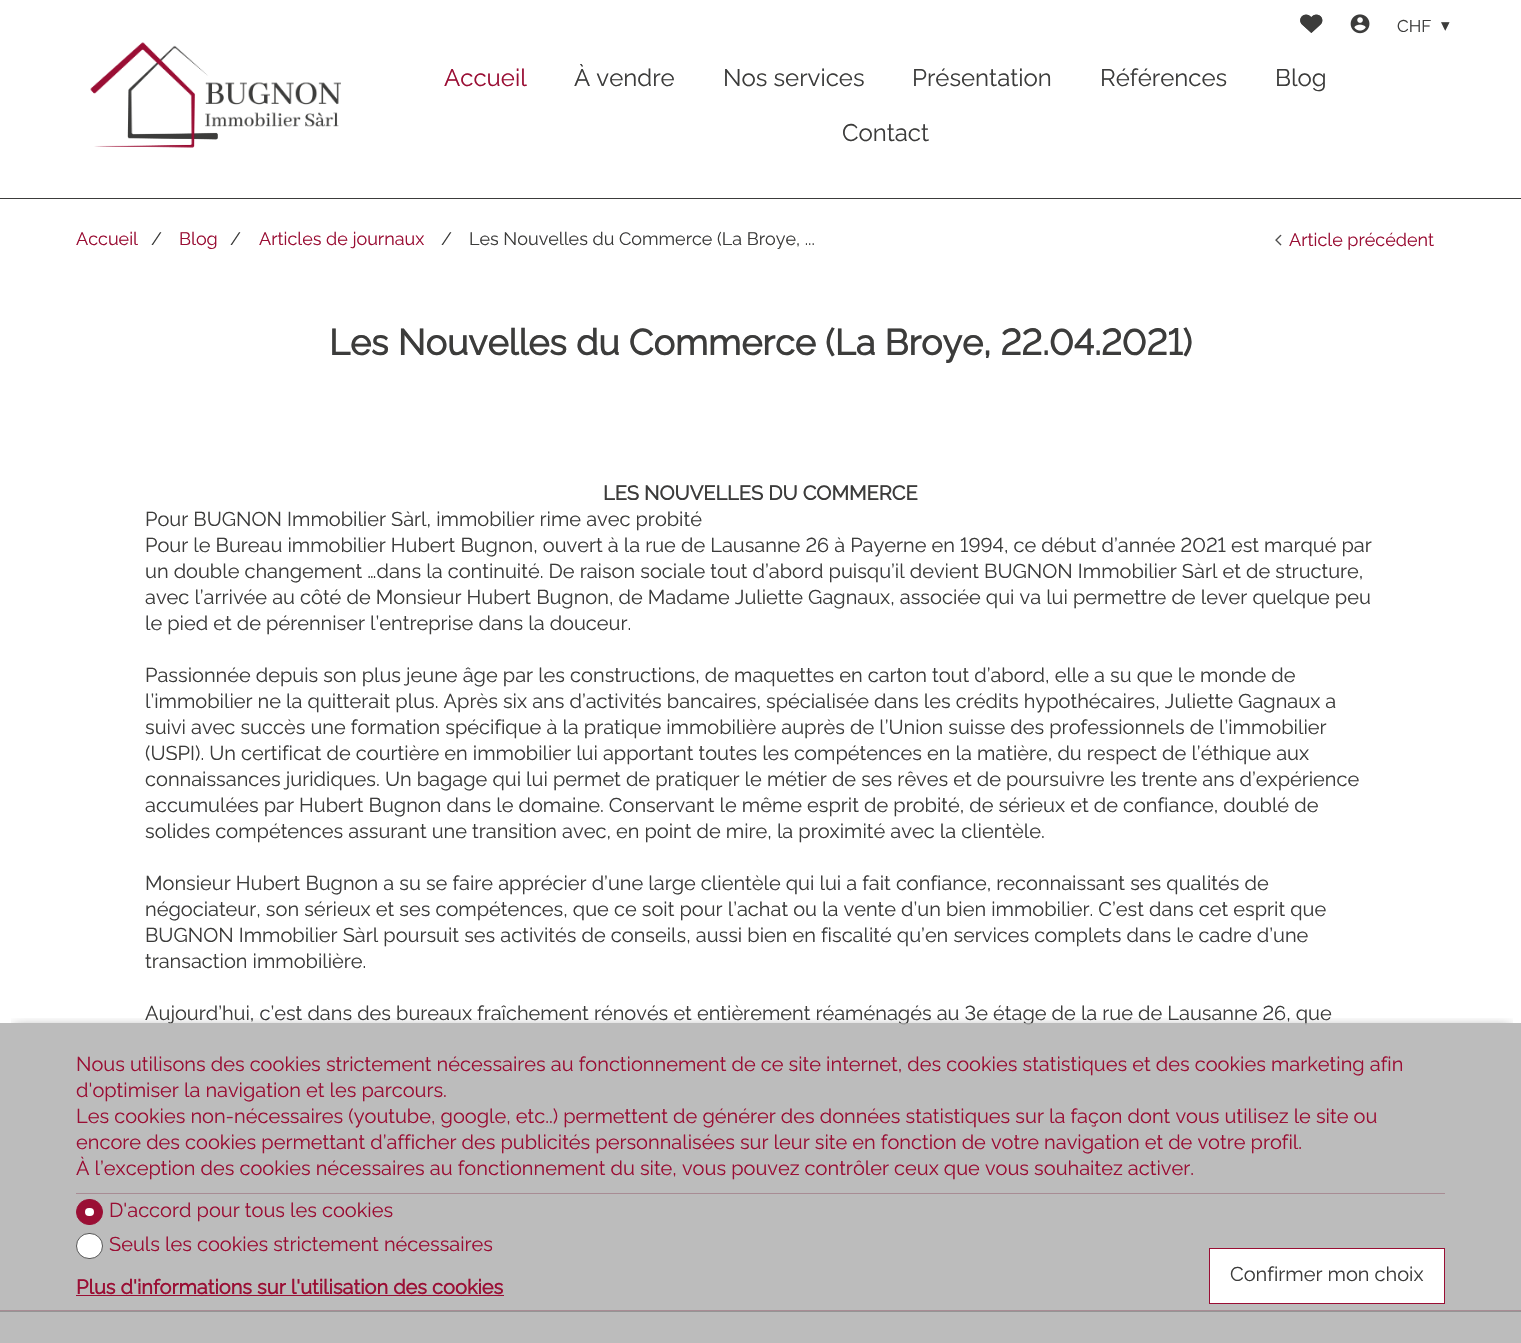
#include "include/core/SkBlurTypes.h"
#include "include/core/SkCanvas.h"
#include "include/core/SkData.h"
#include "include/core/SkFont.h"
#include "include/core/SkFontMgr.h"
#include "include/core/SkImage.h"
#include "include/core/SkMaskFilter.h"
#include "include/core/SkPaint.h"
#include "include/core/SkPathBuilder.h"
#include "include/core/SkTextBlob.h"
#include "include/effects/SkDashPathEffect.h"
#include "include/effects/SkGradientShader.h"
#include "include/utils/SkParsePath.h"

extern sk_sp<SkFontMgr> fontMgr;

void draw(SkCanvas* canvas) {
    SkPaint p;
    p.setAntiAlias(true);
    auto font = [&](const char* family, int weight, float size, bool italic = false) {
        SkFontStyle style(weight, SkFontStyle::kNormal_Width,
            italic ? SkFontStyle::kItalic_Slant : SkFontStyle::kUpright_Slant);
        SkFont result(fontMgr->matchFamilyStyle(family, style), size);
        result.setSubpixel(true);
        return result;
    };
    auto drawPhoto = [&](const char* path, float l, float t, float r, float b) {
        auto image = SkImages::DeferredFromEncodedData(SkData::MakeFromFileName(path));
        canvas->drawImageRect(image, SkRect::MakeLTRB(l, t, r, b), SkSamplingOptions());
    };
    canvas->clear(0xFFFFFFFF);
    p.setColor(0xFF3C3C3B);
    canvas->drawRect(SkRect::MakeLTRB(0, 198, 1521, 199), p);
    drawPhoto("media/1.png", 1300, 14, 1323, 33);
    drawPhoto("media/2.png", 1350, 14, 1370, 34);
    auto font1 = font("Raleway", 100, 17);
    canvas->drawString("CHF", 1397, 32, font1, p);
    auto font2 = font("DejaVu Sans", 400, 17);
    canvas->drawString("▾", 1441, 31, font2, p);
    drawPhoto("media/3.png", 90, 42, 341, 148);
    auto font3 = font("Raleway", 100, 24);
    p.setColor(0xFF9A0E34);
    canvas->drawString("Accueil", 444, 86, font3, p);
    p.setColor(0xFF3C3C3B);
    {
        const struct { const char* s; float x, y; } items[] = {
            {"À vendre", 574, 86},
            {"Nos services", 723, 86},
            {"Présentation", 912, 86},
            {"Références", 1100, 86},
            {"Blog", 1275, 86},
            {"Contact", 842, 141},
        };
        for (auto [s, x, y] : items) {
            canvas->drawString(s, x, y, font3, p);
        }
    }
    p.setColor(0xFF9A0E34);
    canvas->drawRect(SkRect::MakeLTRB(0, 1310, 1521, 1311), p);
    auto font4 = font("Raleway", 100, 18);
    canvas->drawString("Accueil", 76, 245, font4, p);
    p.setColor(0xFF3C3C3B);
    canvas->drawString("/", 151, 245, font4, p);
    p.setColor(0xFF9A0E34);
    canvas->drawString("Blog", 179, 245, font4, p);
    p.setColor(0xFF3C3C3B);
    canvas->drawString("/", 230, 245, font4, p);
    p.setColor(0xFF9A0E34);
    canvas->drawString("Articles de journaux", 259, 245, font4, p);
    p.setColor(0xFF3C3C3B);
    canvas->drawString("/", 441, 245, font4, p);
    canvas->drawString("Les Nouvelles du Commerce (La Broye, ...", 469, 245, font4, p);
    drawPhoto("media/4.png", 1275, 234, 1282, 246);
    p.setColor(0xFF9A0E34);
    canvas->drawString("Article précédent", 1289, 246, font4, p);
    auto font5 = font("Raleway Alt", 700, 36);
    p.setColor(0xFF3C3C3B);
    canvas->drawString("Les Nouvelles du Commerce (La Broye, 22.04.2021)", 329, 355, font5, p);
    p.setColor(0xFF9A0E34);
    canvas->drawRect(SkRect::MakeLTRB(76, 1193, 1445, 1194), p);
    auto font6 = font("Raleway", 700, 20);
    p.setColor(0xFF3C3C3B);
    canvas->drawString("LES NOUVELLES DU COMMERCE", 603, 500, font6, p);
    auto font7 = font("Raleway", 100, 20);
    canvas->drawString("Pour BUGNON Immobilier Sàrl, immobilier rime avec probité", 145, 526, font7, p);
    auto font8 = font("Raleway Alt", 100, 20);
    canvas->drawString("Pour le Bureau immobilier Hubert Bugnon, ouvert à la rue de Lausanne 26 à Payerne en 1994, ce début d’année 2021 est marqué par", 145, 552, font8, p);
    {
        const struct { const char* s; float x, y; } items[] = {
            {"un double changement …dans la continuité. De raison sociale tout d’abord puisqu’il devient BUGNON Immobilier Sàrl et de structure,", 145, 578},
            {"avec l’arrivée au côté de Monsieur Hubert Bugnon, de Madame Juliette Gagnaux, associée qui va lui permettre de lever quelque peu", 145, 604},
            {"le pied et de pérenniser l’entreprise dans la douceur.", 145, 630},
            {"Passionnée depuis son plus jeune âge par les constructions, de maquettes en carton tout d’abord, elle a su que le monde de", 145, 682},
            {"l’immobilier ne la quitterait plus. Après six ans d’activités bancaires, spécialisée dans les crédits hypothécaires, Juliette Gagnaux a", 145, 708},
            {"suivi avec succès une formation spécifique à la pratique immobilière auprès de l’Union suisse des professionnels de l’immobilier", 145, 734},
            {"(USPI). Un certificat de courtière en immobilier lui apportant toutes les compétences en la matière, du respect de l’éthique aux", 145, 760},
            {"connaissances juridiques. Un bagage qui lui permet de pratiquer le métier de ses rêves et de poursuivre les trente ans d’expérience", 145, 786},
            {"accumulées par Hubert Bugnon dans le domaine. Conservant le même esprit de probité, de sérieux et de confiance, doublé de", 145, 812},
            {"solides compétences assurant une transition avec, en point de mire, la proximité avec la clientèle.", 145, 838},
            {"Monsieur Hubert Bugnon a su se faire apprécier d’une large clientèle qui lui a fait confiance, reconnaissant ses qualités de", 145, 890},
            {"négociateur, son sérieux et ses compétences, que ce soit pour l’achat ou la vente d’un bien immobilier. C’est dans cet esprit que", 145, 916},
            {"BUGNON Immobilier Sàrl poursuit ses activités de conseils, aussi bien en fiscalité qu’en services complets dans le cadre d’une", 145, 942},
            {"transaction immobilière.", 145, 968},
        };
        for (auto [s, x, y] : items) {
            canvas->drawString(s, x, y, font7, p);
        }
    }
    canvas->drawString("Aujourd’hui, c’est dans des bureaux fraîchement rénovés et entièrement réaménagés au 3e étage de la rue de Lausanne 26, que", 145, 1020, font8, p);
    canvas->drawRect(SkRect::MakeLTRB(0, 1311, 1521, 1312), p);
    canvas->save();
    canvas->clipRect(SkRect::MakeLTRB(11, 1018, 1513, 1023));
    p.setColor(0xA8000000);
    p.setMaskFilter(SkMaskFilter::MakeBlur(kNormal_SkBlurStyle, 6));
    canvas->drawRect(SkRect::MakeLTRB(14, 1029, 1510, 1325), p);
    p.setMaskFilter(nullptr);
    canvas->restore();
    p.setColor(0xCCABABAB);
    canvas->drawRect(SkRect::MakeLTRB(0, 1023, 1521, 1343), p);
    p.setColor(0xFF9A0E34);
    {
        const struct { const char* s; float x, y; } items[] = {
            {"Nous utilisons des cookies strictement nécessaires au fonctionnement de ce site internet, des cookies statistiques et des cookies marketing afin", 76, 1071},
            {"d'optimiser la navigation et les parcours.", 76, 1097},
            {"Les cookies non-nécessaires (youtube, google, etc..) permettent de générer des données statistiques sur la façon dont vous utilisez le site ou", 76, 1123},
            {"encore des cookies permettant d’afficher des publicités personnalisées sur leur site en fonction de votre navigation et de votre profil.", 76, 1149},
            {"À l’exception des cookies nécessaires au fonctionnement du site, vous pouvez contrôler ceux que vous souhaitez activer.", 76, 1175},
        };
        for (auto [s, x, y] : items) {
            canvas->drawString(s, x, y, font7, p);
        }
    }
    canvas->drawRoundRect(SkRect::MakeLTRB(76.5f, 1199.5f, 102.5f, 1224.5f), 12.5f, 12.5f, p);
    p.setStyle(SkPaint::kStroke_Style);
    p.setStrokeWidth(1);
    canvas->drawRoundRect(SkRect::MakeLTRB(76.5f, 1199.5f, 102.5f, 1224.5f), 12.5f, 12.5f, p);
    p.setStyle(SkPaint::kFill_Style);
    p.setColor(0xFFFFFFFF);
    canvas->drawRoundRect(SkRect::MakeLTRB(85, 1208, 94, 1216), 4, 4, p);
    p.setColor(0xFF9A0E34);
    canvas->drawString("D'accord pour tous les cookies", 109, 1217, font7, p);
    p.setColor(0xFFFFFFFF);
    canvas->drawRoundRect(SkRect::MakeLTRB(76.5f, 1233.5f, 102.5f, 1258.5f), 12.5f, 12.5f, p);
    p.setStyle(SkPaint::kStroke_Style);
    p.setColor(0xFF555555);
    canvas->drawRoundRect(SkRect::MakeLTRB(76.5f, 1233.5f, 102.5f, 1258.5f), 12.5f, 12.5f, p);
    p.setStyle(SkPaint::kFill_Style);
    p.setColor(0xFF9A0E34);
    canvas->drawString("Seuls les cookies strictement nécessaires", 109, 1251, font7, p);
    canvas->drawString("Plus d'informations sur l'utilisation des cookies", 76, 1294, font6, p);
    canvas->drawRect(SkRect::MakeLTRB(76, 1295, 504, 1296), p);
    p.setColor(0xFFFFFFFF);
    canvas->drawRect(SkRect::MakeLTRB(1209.5f, 1248.5f, 1444.5f, 1303.5f), p);
    p.setStyle(SkPaint::kStroke_Style);
    p.setColor(0xFF9A0E34);
    canvas->drawRect(SkRect::MakeLTRB(1209.5f, 1248.5f, 1444.5f, 1303.5f), p);
    p.setStyle(SkPaint::kFill_Style);
    p.setColor(0xFF3C3C3B);
    canvas->drawString("Confirmer mon choix", 1230, 1281, font7, p);
}
